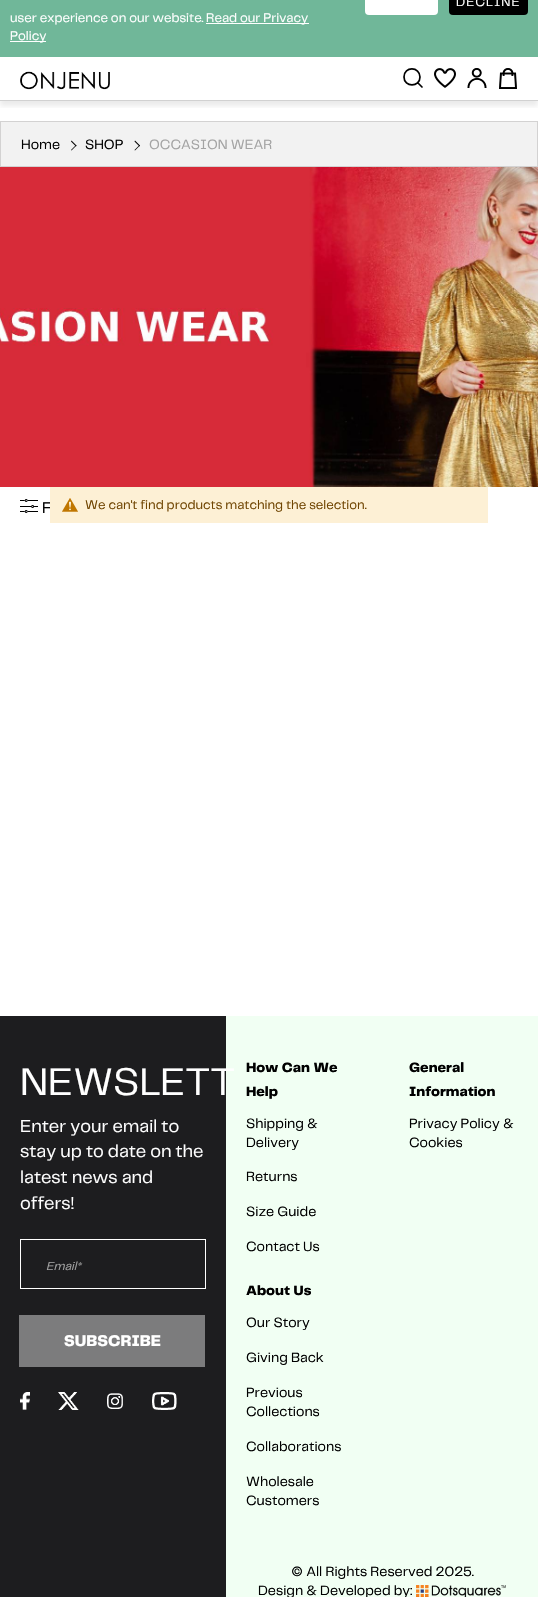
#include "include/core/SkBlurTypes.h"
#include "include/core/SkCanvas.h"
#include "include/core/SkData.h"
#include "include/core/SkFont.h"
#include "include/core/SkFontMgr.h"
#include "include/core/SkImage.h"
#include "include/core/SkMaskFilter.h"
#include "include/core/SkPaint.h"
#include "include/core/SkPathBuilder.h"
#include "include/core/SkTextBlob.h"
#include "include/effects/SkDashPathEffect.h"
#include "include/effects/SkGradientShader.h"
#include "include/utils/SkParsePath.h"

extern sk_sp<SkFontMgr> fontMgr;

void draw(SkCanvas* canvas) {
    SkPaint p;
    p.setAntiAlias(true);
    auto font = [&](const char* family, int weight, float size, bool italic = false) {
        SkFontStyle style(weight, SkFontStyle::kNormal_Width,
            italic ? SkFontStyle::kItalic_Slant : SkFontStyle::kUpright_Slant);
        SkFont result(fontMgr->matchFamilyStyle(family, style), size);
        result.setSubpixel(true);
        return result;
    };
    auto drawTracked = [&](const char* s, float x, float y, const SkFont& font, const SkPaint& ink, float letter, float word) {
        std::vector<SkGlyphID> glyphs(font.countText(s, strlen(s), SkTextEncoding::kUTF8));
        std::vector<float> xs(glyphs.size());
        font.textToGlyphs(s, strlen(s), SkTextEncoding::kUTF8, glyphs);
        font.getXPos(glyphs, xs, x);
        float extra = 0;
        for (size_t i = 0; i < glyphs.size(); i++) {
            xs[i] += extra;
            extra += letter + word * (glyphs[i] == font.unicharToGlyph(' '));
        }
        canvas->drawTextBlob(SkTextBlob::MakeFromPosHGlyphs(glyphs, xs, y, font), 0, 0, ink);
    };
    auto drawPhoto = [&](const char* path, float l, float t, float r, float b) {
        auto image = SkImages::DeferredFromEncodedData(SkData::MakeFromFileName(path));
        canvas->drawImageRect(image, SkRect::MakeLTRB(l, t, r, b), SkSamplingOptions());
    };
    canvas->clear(0xFFFFFFFF);
    canvas->save();
    canvas->clipRect(SkRect::MakeLTRB(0, 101, 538, 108));
    p.setColor(0x14000000);
    p.setMaskFilter(SkMaskFilter::MakeBlur(kNormal_SkBlurStyle, 2.5f));
    canvas->drawRect(SkRect::MakeLTRB(0, 62, 538, 106), p);
    p.setMaskFilter(nullptr);
    canvas->restore();
    p.setColor(0xFF70B799);
    canvas->drawRect(SkRect::MakeLTRB(0, 0, 538, 57), p);
    p.setColor(0xFFFFFFFF);
    canvas->drawRoundRect(SkRect::MakeLTRB(365, -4, 438, 15), 4, 4, p);
    p.setColor(0xFF000000);
    canvas->drawRoundRect(SkRect::MakeLTRB(449, -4, 528, 15), 4, 4, p);
    auto font1 = font("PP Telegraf", 400, 13);
    p.setColor(0xFFFFFFFF);
    drawTracked("DECLINE", 456, 6, font1, p, 1, 0);
    canvas->drawString("user experience on our website.", 10, 22, font1, p);
    canvas->drawRect(SkRect::MakeLTRB(206, 23, 309, 24), p);
    canvas->drawString("Read our Privacy", 206, 22, font1, p);
    canvas->drawRect(SkRect::MakeLTRB(10, 41, 46, 42), p);
    canvas->drawString("Policy", 10, 40, font1, p);
    p.setColor(0xFFD1D1D1);
    canvas->drawRect(SkRect::MakeLTRB(0, 100, 538, 101), p);
    drawPhoto("media/1.png", 20, 71, 110, 90);
    p.setStyle(SkPaint::kStroke_Style);
    p.setStrokeWidth(1.7f);
    p.setStrokeCap(SkPaint::kRound_Cap);
    p.setStrokeJoin(SkPaint::kRound_Join);
    p.setColor(0xFF000000);
    canvas->drawPath(SkPathBuilder().moveTo(420, 77).cubicTo(420, 87.5f, 404, 87.5f, 404, 77).cubicTo(404, 66, 420, 66.5f, 420, 77).close().moveTo(422, 87).lineTo(418, 83).detach(), p);
    drawPhoto("media/2.png", 434, 68, 456, 88);
    drawPhoto("media/3.png", 467, 68, 487, 88);
    drawPhoto("media/4.png", 499, 68, 517, 89);
    p.setStyle(SkPaint::kFill_Style);
    p.setColor(0xFFF2F2F2);
    canvas->drawRect(SkRect::MakeLTRB(0.5f, 121.5f, 537.5f, 166.5f), p);
    p.setStyle(SkPaint::kStroke_Style);
    p.setStrokeWidth(1);
    p.setStrokeCap(SkPaint::kButt_Cap);
    p.setStrokeJoin(SkPaint::kMiter_Join);
    p.setColor(0xFFD3D2D2);
    canvas->drawRect(SkRect::MakeLTRB(0.5f, 121.5f, 537.5f, 166.5f), p);
    auto font2 = font("PP Telegraf", 400, 14);
    p.setStyle(SkPaint::kFill_Style);
    p.setColor(0xFF000000);
    canvas->drawString("Home", 21, 149, font2, p);
    canvas->drawPath(SkPathBuilder().moveTo(71, 141.5f).lineTo(71.5f, 140.5f).lineTo(76.5f, 145.5f).lineTo(76, 146.5f).close().detach(), p);
    canvas->drawPath(SkPathBuilder().moveTo(71, 150).lineTo(76, 145).lineTo(76.5f, 145.5f).lineTo(71.5f, 150.5f).close().detach(), p);
    canvas->drawString("SHOP", 85, 149, font2, p);
    canvas->drawPath(SkPathBuilder().moveTo(134.5f, 141.5f).lineTo(135, 140.5f).lineTo(140, 145.5f).lineTo(139.5f, 146.5f).close().detach(), p);
    canvas->drawPath(SkPathBuilder().moveTo(134.5f, 150).lineTo(139.5f, 145).lineTo(140, 145.5f).lineTo(135, 150.5f).close().detach(), p);
    p.setColor(0xFFA3A3A3);
    canvas->drawString("OCCASION WEAR", 149, 149, font2, p);
    drawPhoto("media/5.png", 0, 167, 538, 487);
    drawPhoto("media/6.png", 20, 499, 38, 513);
    auto font3 = font("PP Telegraf", 400, 16);
    p.setColor(0xFF000000);
    canvas->drawString("F", 42, 513, font3, p);
    p.setColor(0xFFFDF0D5);
    canvas->drawRect(SkRect::MakeLTRB(50, 487, 488, 523), p);
    drawPhoto("media/7.png", 62, 498, 78, 512);
    p.setColor(0xFF6F4400);
    canvas->drawString("We can't find products matching the selection.", 85, 509, font1, p);
    p.setColor(0xFFF1FFF3);
    canvas->drawRect(SkRect::MakeLTRB(226, 1016, 538, 1597), p);
    p.setColor(0xFF1D1D1F);
    canvas->drawRect(SkRect::MakeLTRB(0, 1016, 226, 1597), p);
    auto font4 = font("PP Telegraf", 400, 40);
    p.setColor(0xFFFFFFFF);
    canvas->drawString("NEWSLETT", 20, 1095, font4, p);
    auto font5 = font("PP Telegraf", 400, 18);
    {
        const struct { const char* s; float x, y; } items[] = {
            {"Enter your email to", 20, 1132},
            {"stay up to date on the", 20, 1157},
            {"latest news and", 20, 1183},
            {"offers!", 20, 1209},
        };
        for (auto [s, x, y] : items) {
            canvas->drawString(s, x, y, font5, p);
        }
    }
    p.setStyle(SkPaint::kStroke_Style);
    canvas->drawRect(SkRect::MakeLTRB(20.5f, 1239.5f, 205.5f, 1288.5f), p);
    auto font6 = font("PP Telegraf", 400, 12, true);
    p.setStyle(SkPaint::kFill_Style);
    p.setColor(0xFFA3A3A3);
    canvas->drawString("Email*", 46, 1270, font6, p);
    p.setColor(0xFF7C7C7D);
    canvas->drawRect(SkRect::MakeLTRB(19, 1315, 205, 1367), p);
    auto font7 = font("PP Telegraf", 800, 16);
    p.setColor(0xFFFFFFFF);
    canvas->drawString("SUBSCRIBE", 64, 1346, font7, p);
    drawPhoto("media/8.png", 20, 1392, 30, 1410);
    drawPhoto("media/9.png", 58, 1392, 79, 1410);
    drawPhoto("media/10.png", 107, 1393, 123, 1409);
    drawPhoto("media/11.png", 152, 1392, 177, 1410);
    auto font8 = font("PP Telegraf", 800, 14);
    p.setColor(0xFF000000);
    canvas->drawString("How Can We", 246, 1072, font8, p);
    canvas->drawString("Help", 246, 1096, font8, p);
    {
        const struct { const char* s; float x, y; } items[] = {
            {"Shipping &", 246, 1128},
            {"Delivery", 246, 1147},
            {"Returns", 246, 1181},
            {"Size Guide", 246, 1216},
            {"Contact Us", 246, 1251},
        };
        for (auto [s, x, y] : items) {
            canvas->drawString(s, x, y, font2, p);
        }
    }
    canvas->drawString("General", 409, 1072, font8, p);
    canvas->drawString("Information", 409, 1096, font8, p);
    canvas->drawString("Privacy Policy &", 409, 1128, font2, p);
    canvas->drawString("Cookies", 409, 1147, font2, p);
    canvas->drawString("About Us", 246, 1295, font8, p);
    {
        const struct { const char* s; float x, y; } items[] = {
            {"Our Story", 246, 1327},
            {"Giving Back", 246, 1362},
            {"Previous", 246, 1397},
            {"Collections", 246, 1416},
            {"Collaborations", 246, 1451},
            {"Wholesale", 246, 1486},
            {"Customers", 246, 1505},
            {"© All Rights Reserved 2025.", 291, 1576},
            {"Design & Developed by:", 258, 1595},
        };
        for (auto [s, x, y] : items) {
            canvas->drawString(s, x, y, font2, p);
        }
    }
    drawPhoto("media/12.png", 416, 1585, 506, 1597);
}
